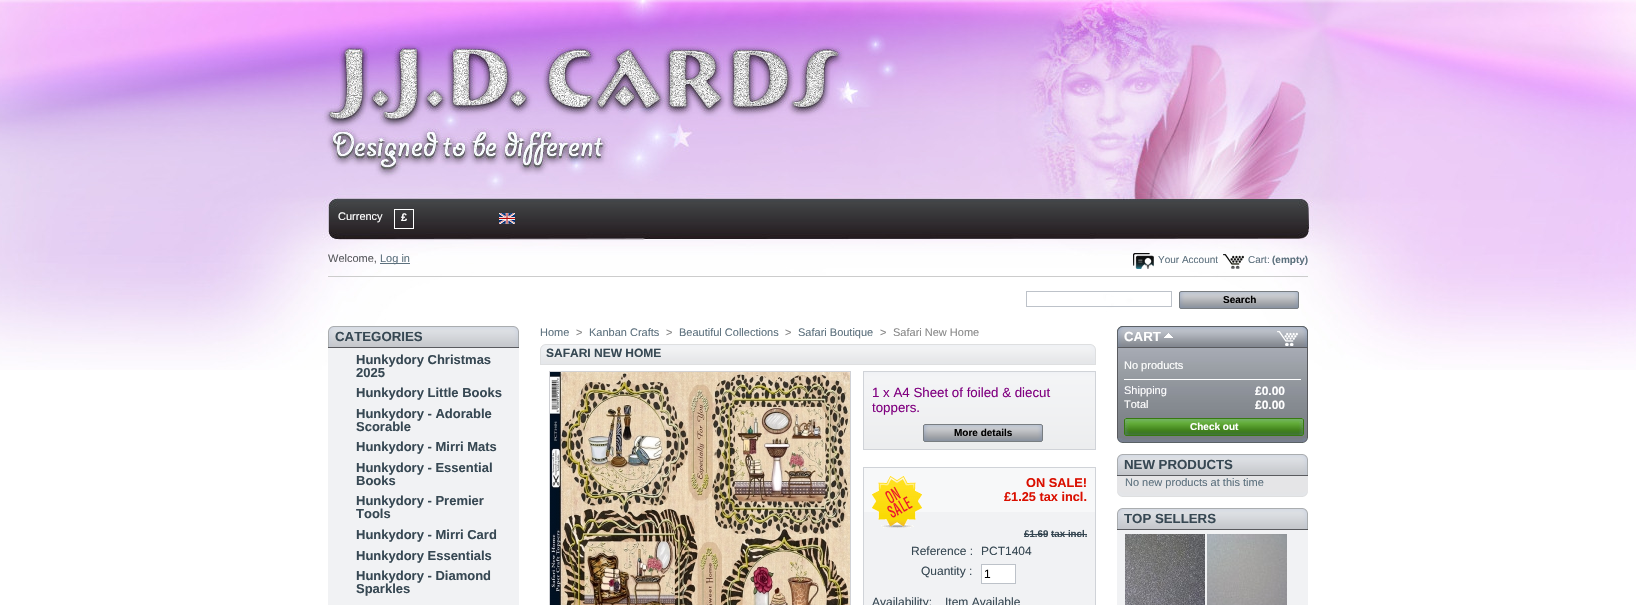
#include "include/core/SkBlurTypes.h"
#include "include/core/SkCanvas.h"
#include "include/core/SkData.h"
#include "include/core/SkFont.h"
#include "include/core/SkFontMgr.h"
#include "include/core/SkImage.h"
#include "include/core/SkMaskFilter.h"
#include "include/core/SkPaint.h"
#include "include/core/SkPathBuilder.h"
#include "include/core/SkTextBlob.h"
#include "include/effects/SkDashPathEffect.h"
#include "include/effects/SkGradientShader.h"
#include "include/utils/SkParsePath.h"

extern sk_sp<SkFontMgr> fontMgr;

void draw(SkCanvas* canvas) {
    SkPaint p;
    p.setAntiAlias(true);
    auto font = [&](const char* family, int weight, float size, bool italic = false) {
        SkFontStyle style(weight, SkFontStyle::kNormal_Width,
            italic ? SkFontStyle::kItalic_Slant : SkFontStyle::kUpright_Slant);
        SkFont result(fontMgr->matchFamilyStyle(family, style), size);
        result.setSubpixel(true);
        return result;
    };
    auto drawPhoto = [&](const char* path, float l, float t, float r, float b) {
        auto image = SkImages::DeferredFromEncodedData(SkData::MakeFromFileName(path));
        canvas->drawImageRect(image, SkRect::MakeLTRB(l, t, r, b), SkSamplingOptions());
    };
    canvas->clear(0xFFFFFFFF);
    drawPhoto("media/1.png", 0, 0, 1636, 370);
    auto font1 = font("Liberation Sans", 400, 11);
    p.setColor(0xFFFFFFFF);
    canvas->drawString("Currency", 338, 220, font1, p);
    p.setStyle(SkPaint::kStroke_Style);
    p.setStrokeWidth(1);
    canvas->drawRect(SkRect::MakeLTRB(394.5f, 209.5f, 413.5f, 228.5f), p);
    auto font2 = font("Liberation Sans", 700, 11);
    p.setStyle(SkPaint::kFill_Style);
    canvas->drawString("£", 401, 221, font2, p);
    drawPhoto("media/2.png", 499, 213, 515, 224);
    p.setColor(0xFFCCCCCC);
    canvas->drawRect(SkRect::MakeLTRB(328, 276, 1308, 277), p);
    p.setColor(0xFF595A5E);
    canvas->drawString("Welcome,", 328, 262, font1, p);
    p.setColor(0xFF5D717E);
    canvas->drawRect(SkRect::MakeLTRB(380, 263, 410, 264), p);
    canvas->drawString("Log in", 380, 262, font1, p);
    drawPhoto("media/3.png", 1133, 253, 1154, 269);
    auto font3 = font("Liberation Sans", 400, 10);
    canvas->drawString("Your Account", 1158, 263, font3, p);
    drawPhoto("media/4.png", 1223, 254, 1244, 269);
    canvas->drawString("Cart:", 1248, 263, font3, p);
    auto font4 = font("Liberation Sans", 700, 10);
    canvas->drawString("(empty)", 1272, 263, font4, p);
    p.setColor(0xFFFFFFFF);
    canvas->drawRect(SkRect::MakeLTRB(1106, 295, 1111, 306), p);
    p.setStyle(SkPaint::kStroke_Style);
    p.setColor(0xFFBDC2C9);
    canvas->drawRect(SkRect::MakeLTRB(1026.5f, 291.5f, 1171.5f, 306.5f), p);
    p.setStyle(SkPaint::kFill_Style);
    p.setColor(0xFFEFEFEF);
    canvas->drawRect(SkRect::MakeLTRB(1179, 291, 1299, 309), p);
    drawPhoto("media/5.png", 1179, 291, 1299, 309);
    p.setColor(0xFF000000);
    canvas->drawString("Search", 1223, 303, font4, p);
    drawPhoto("media/6.png", 328, 326, 519, 347);
    p.setColor(0xFF595A5E);
    canvas->drawRect(SkRect::MakeLTRB(328, 347, 519, 348), p);
    auto font5 = font("Liberation Sans", 700, 13.25f);
    p.setColor(0xFF374853);
    canvas->drawString("CATEGORIES", 335, 341, font5, p);
    p.setColor(0xFFF1F2F4);
    canvas->drawRect(SkRect::MakeLTRB(328, 348, 519, 605), p);
    auto font6 = font("Liberation Sans", 700, 13);
    p.setColor(0xFF374853);
    {
        const struct { const char* s; float x, y; } items[] = {
            {"Hunkydory Christmas", 356, 364},
            {"2025", 356, 377},
            {"Hunkydory Little Books", 356, 397},
            {"Hunkydory - Adorable", 356, 418},
            {"Scorable", 356, 431},
            {"Hunkydory - Mirri Mats", 356, 451},
            {"Hunkydory - Essential", 356, 472},
            {"Books", 356, 485},
            {"Hunkydory - Premier", 356, 505},
            {"Tools", 356, 518},
            {"Hunkydory - Mirri Card", 356, 539},
            {"Hunkydory Essentials", 356, 560},
            {"Hunkydory - Diamond", 356, 580},
            {"Sparkles", 356, 593},
        };
        for (auto [s, x, y] : items) {
            canvas->drawString(s, x, y, font6, p);
        }
    }
    p.setColor(0xFF5D717E);
    canvas->drawString("Home", 540, 336, font1, p);
    p.setColor(0xFF888888);
    canvas->drawString(">", 576, 336, font1, p);
    p.setColor(0xFF5D717E);
    canvas->drawString("Kanban Crafts", 589, 336, font1, p);
    p.setColor(0xFF888888);
    canvas->drawString(">", 666, 336, font1, p);
    p.setColor(0xFF5D717E);
    canvas->drawString("Beautiful Collections", 679, 336, font1, p);
    p.setColor(0xFF888888);
    canvas->drawString(">", 785, 336, font1, p);
    p.setColor(0xFF5D717E);
    canvas->drawString("Safari Boutique", 798, 336, font1, p);
    p.setColor(0xFF888888);
    canvas->drawString(">", 880, 336, font1, p);
    canvas->drawString("Safari New Home", 893, 336, font1, p);
    drawPhoto("media/7.png", 540, 344, 1096, 365);
    auto font7 = font("Liberation Sans", 700, 12);
    p.setColor(0xFF374853);
    canvas->drawString("SAFARI NEW HOME", 546, 357, font7, p);
    p.setStyle(SkPaint::kStroke_Style);
    p.setColor(0xFFD0D1D5);
    canvas->drawRect(SkRect::MakeLTRB(549.5f, 371.5f, 850.5f, 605.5f), p);
    drawPhoto("media/8.png", 550, 372, 850, 605);
    drawPhoto("media/9.png", 864, 372, 1095, 449);
    p.setColor(0xFFD0D3D8);
    canvas->drawRect(SkRect::MakeLTRB(863.5f, 371.5f, 1095.5f, 449.5f), p);
    auto font8 = font("Liberation Sans", 400, 13.3f);
    p.setStyle(SkPaint::kFill_Style);
    p.setColor(0xFF800080);
    canvas->drawString("1 x A4 Sheet of foiled & diecut", 872, 397, font8, p);
    canvas->drawString("toppers.", 872, 412, font8, p);
    drawPhoto("media/10.png", 923, 424, 1043, 442);
    p.setColor(0xFF000000);
    canvas->drawString("More details", 954, 436, font4, p);
    p.setColor(0xFFF1F2F4);
    canvas->drawRect(SkRect::MakeLTRB(864, 512, 1095, 605), p);
    p.setColor(0xFFF7F8F9);
    canvas->drawRect(SkRect::MakeLTRB(864, 468, 1095, 512), p);
    p.setStyle(SkPaint::kStroke_Style);
    p.setColor(0xFFD0D3D8);
    canvas->drawRect(SkRect::MakeLTRB(863.5f, 467.5f, 1095.5f, 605.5f), p);
    drawPhoto("media/11.png", 872, 476, 922, 528);
    auto font9 = font("Liberation Sans", 700, 12.75f);
    p.setStyle(SkPaint::kFill_Style);
    p.setColor(0xFFDA0F00);
    canvas->drawString("ON SALE!", 1026, 487, font9, p);
    canvas->drawString("£1.25 tax incl.", 1004, 501, font9, p);
    auto font10 = font("Liberation Sans", 700, 9.75f);
    p.setColor(0xFF374853);
    canvas->drawString("£1.69 tax incl.", 1024, 537, font10, p);
    canvas->drawRect(SkRect::MakeLTRB(1024, 534, 1048, 535), p);
    canvas->drawRect(SkRect::MakeLTRB(1051, 534, 1087, 535), p);
    auto font11 = font("Liberation Sans", 400, 12);
    {
        const struct { const char* s; float x, y; } items[] = {
            {"Reference :", 911, 555},
            {"PCT1404", 981, 555},
            {"Quantity :", 921, 575},
        };
        for (auto [s, x, y] : items) {
            canvas->drawString(s, x, y, font11, p);
        }
    }
    p.setColor(0xFFFFFFFF);
    canvas->drawRect(SkRect::MakeLTRB(981.5f, 564.5f, 1015.5f, 583.5f), p);
    p.setStyle(SkPaint::kStroke_Style);
    p.setColor(0xFFBDC2C9);
    canvas->drawRect(SkRect::MakeLTRB(981.5f, 564.5f, 1015.5f, 583.5f), p);
    p.setStyle(SkPaint::kFill_Style);
    p.setColor(0xFF000000);
    canvas->drawString("1", 984, 578, font11, p);
    p.setColor(0xFF374853);
    canvas->drawString("Availability:", 872, 606, font11, p);
    canvas->drawString("Item Available", 945, 606, font11, p);
    drawPhoto("media/12.png", 1117, 438, 1308, 443);
    drawPhoto("media/13.png", 1117, 326, 1308, 347);
    p.setColor(0xFF595A5E);
    canvas->drawRect(SkRect::MakeLTRB(1117, 347, 1308, 348), p);
    p.setColor(0xFFFFFFFF);
    canvas->drawString("CART", 1124, 341, font5, p);
    drawPhoto("media/14.png", 1164, 333, 1173, 338);
    drawPhoto("media/15.png", 1118, 348, 1307, 438);
    p.setColor(0xFF595A5E);
    canvas->drawRect(SkRect::MakeLTRB(1307, 348, 1308, 438), p);
    canvas->drawRect(SkRect::MakeLTRB(1117, 348, 1118, 438), p);
    p.setColor(0xFFFFFFFF);
    canvas->drawString("No products", 1124, 369, font1, p);
    canvas->drawRect(SkRect::MakeLTRB(1124, 379, 1301, 380), p);
    canvas->drawString("Shipping", 1124, 394, font1, p);
    canvas->drawString("£0.00", 1255, 395, font7, p);
    canvas->drawString("Total", 1124, 408, font1, p);
    canvas->drawString("£0.00", 1255, 409, font7, p);
    drawPhoto("media/16.png", 1124, 418, 1304, 436);
    canvas->drawString("Check out", 1190, 430, font4, p);
    drawPhoto("media/17.png", 1117, 492, 1308, 497);
    drawPhoto("media/18.png", 1117, 454, 1308, 475);
    p.setColor(0xFF595A5E);
    canvas->drawRect(SkRect::MakeLTRB(1117, 475, 1308, 476), p);
    p.setColor(0xFF374853);
    canvas->drawString("NEW PRODUCTS", 1124, 469, font5, p);
    p.setColor(0xFFE5E5E7);
    canvas->drawRect(SkRect::MakeLTRB(1117, 476, 1308, 492), p);
    p.setColor(0xFF5D717E);
    canvas->drawString("No new products at this time", 1125, 486, font1, p);
    drawPhoto("media/18.png", 1117, 508, 1308, 529);
    p.setColor(0xFF595A5E);
    canvas->drawRect(SkRect::MakeLTRB(1117, 529, 1308, 530), p);
    p.setColor(0xFF374853);
    canvas->drawString("TOP SELLERS", 1124, 523, font5, p);
    p.setColor(0xFFF1F2F4);
    canvas->drawRect(SkRect::MakeLTRB(1117, 530, 1308, 605), p);
    drawPhoto("media/19.png", 1125, 534, 1205, 605);
    drawPhoto("media/20.png", 1207, 534, 1287, 605);
}
